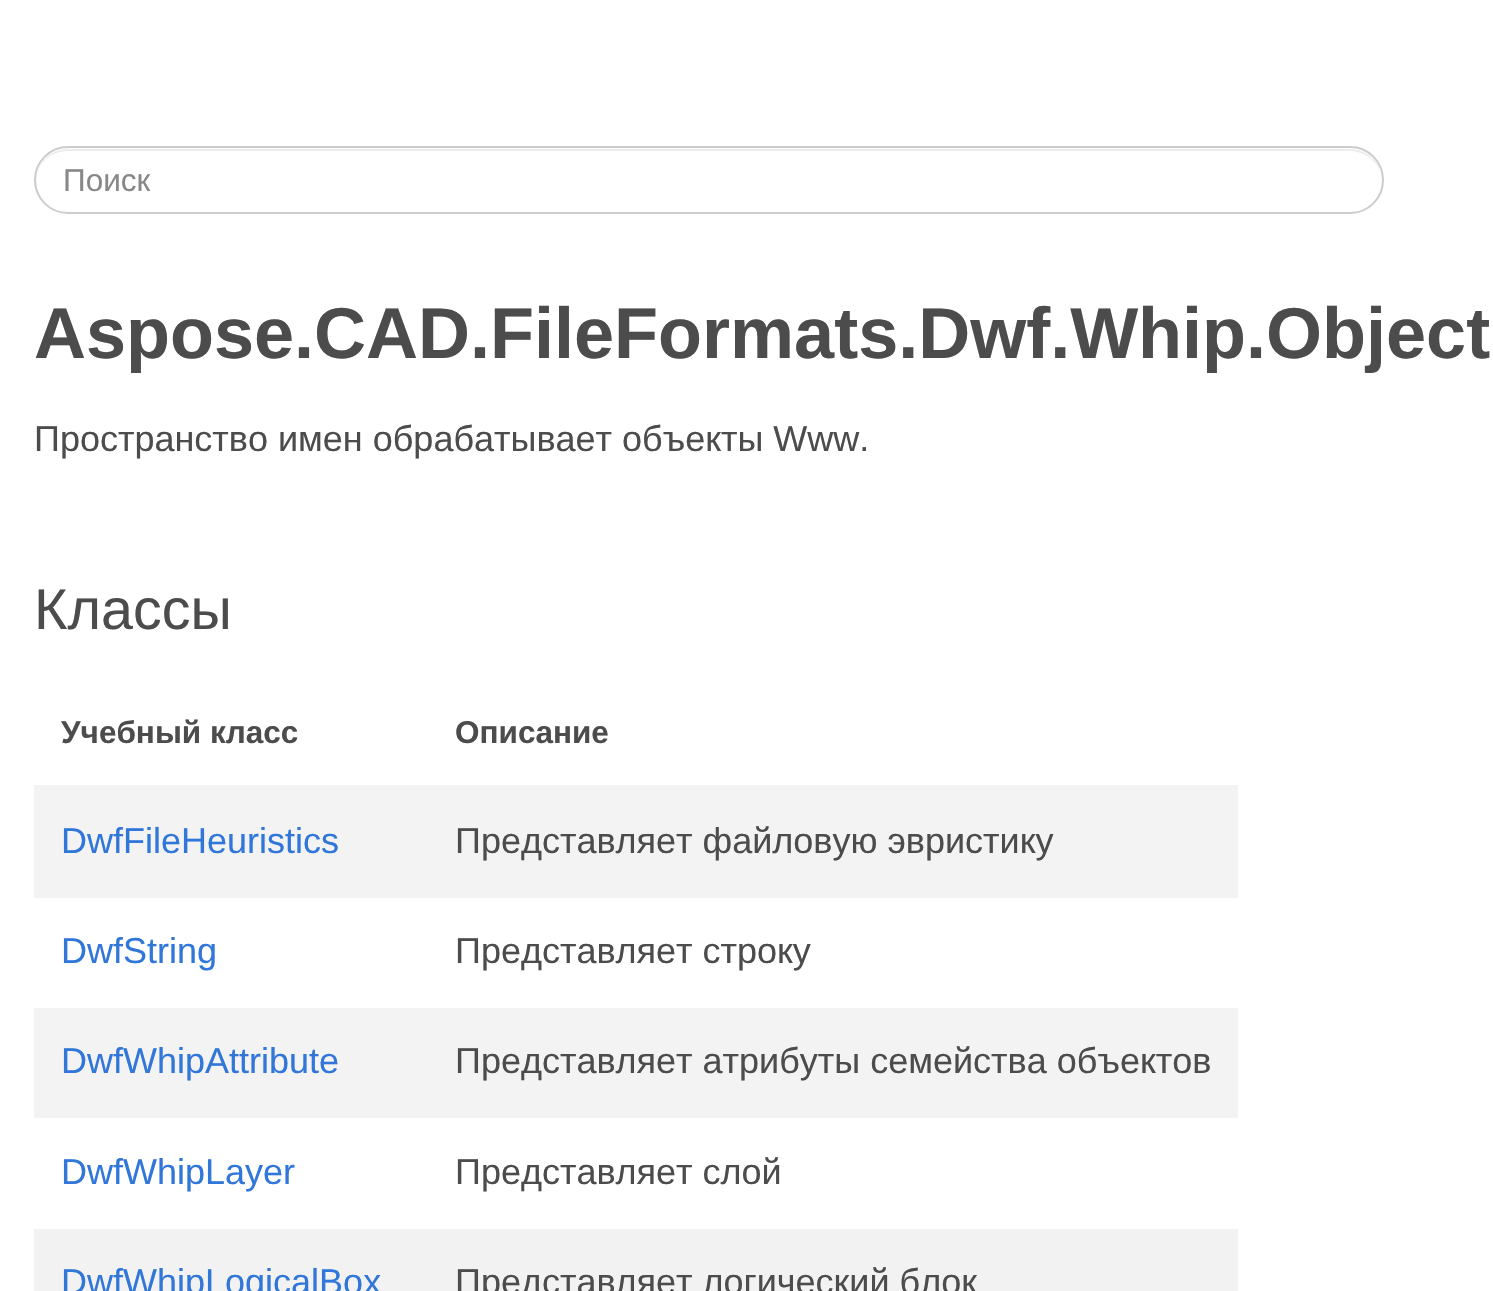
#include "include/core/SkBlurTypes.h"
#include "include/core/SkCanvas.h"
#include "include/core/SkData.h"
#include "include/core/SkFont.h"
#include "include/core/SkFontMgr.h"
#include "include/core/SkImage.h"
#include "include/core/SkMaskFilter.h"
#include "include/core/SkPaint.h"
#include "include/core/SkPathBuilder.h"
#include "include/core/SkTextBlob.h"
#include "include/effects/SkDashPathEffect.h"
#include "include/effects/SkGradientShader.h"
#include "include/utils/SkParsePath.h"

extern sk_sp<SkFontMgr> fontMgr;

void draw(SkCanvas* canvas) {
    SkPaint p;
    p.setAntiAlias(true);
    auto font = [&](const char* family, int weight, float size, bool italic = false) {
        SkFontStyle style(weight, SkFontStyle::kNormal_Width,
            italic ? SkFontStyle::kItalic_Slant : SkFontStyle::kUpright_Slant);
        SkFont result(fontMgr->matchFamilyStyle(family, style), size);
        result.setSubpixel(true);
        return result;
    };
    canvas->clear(0xFFFFFFFF);
    p.setColor(0xFFECECEC);
    canvas->drawPath(SkPathBuilder().moveTo(68, 151).lineTo(1350, 151).cubicTo(1367, 151, 1382, 165, 1382, 181).cubicTo(1382, 164, 1368, 149, 1350, 149).lineTo(68, 149).cubicTo(50, 149, 36, 164, 36, 181).cubicTo(36, 165, 50, 151, 68, 151).close().detach(), p);
    p.setStyle(SkPaint::kStroke_Style);
    p.setStrokeWidth(2);
    p.setColor(0xFFCCCCCC);
    canvas->drawRoundRect(SkRect::MakeLTRB(35, 147, 1383, 213), 33, 33, p);
    auto font1 = font("Liberation Sans", 400, 31.5f);
    p.setStyle(SkPaint::kFill_Style);
    p.setColor(0xFF888888);
    canvas->drawString("Поиск", 63, 191, font1, p);
    auto font2 = font("Liberation Sans", 700, 72);
    p.setColor(0xFF4C4C4C);
    canvas->drawString("Aspose.CAD.FileFormats.Dwf.Whip.Object", 34, 358, font2, p);
    auto font3 = font("Liberation Sans", 400, 36);
    canvas->drawString("Пространство имен обрабатывает объекты Www.", 34, 451, font3, p);
    auto font4 = font("Liberation Sans", 400, 57.5f);
    canvas->drawString("Классы", 34, 629, font4, p);
    auto font5 = font("Liberation Sans", 700, 31.5f);
    canvas->drawString("Учебный класс", 61, 743, font5, p);
    canvas->drawString("Описание", 455, 743, font5, p);
    p.setColor(0xFFF3F3F3);
    canvas->drawRect(SkRect::MakeLTRB(34, 785, 1238, 898), p);
    p.setColor(0xFF3176D9);
    canvas->drawString("DwfFileHeuristics", 61, 853, font3, p);
    p.setColor(0xFF4C4C4C);
    canvas->drawString("Представляет файловую эвристику", 455, 853, font3, p);
    p.setColor(0xFF3176D9);
    canvas->drawString("DwfString", 61, 963, font3, p);
    p.setColor(0xFF4C4C4C);
    canvas->drawString("Представляет строку", 455, 963, font3, p);
    p.setColor(0xFFF3F3F3);
    canvas->drawRect(SkRect::MakeLTRB(34, 1008, 1238, 1118), p);
    p.setColor(0xFF3176D9);
    canvas->drawString("DwfWhipAttribute", 61, 1073, font3, p);
    p.setColor(0xFF4C4C4C);
    canvas->drawString("Представляет атрибуты семейства объектов", 455, 1073, font3, p);
    p.setColor(0xFF3176D9);
    canvas->drawString("DwfWhipLayer", 61, 1184, font3, p);
    p.setColor(0xFF4C4C4C);
    canvas->drawString("Представляет слой", 455, 1184, font3, p);
    p.setColor(0xFFF2F2F2);
    canvas->drawRect(SkRect::MakeLTRB(34, 1229, 1238, 1291), p);
    p.setColor(0xFF3176D9);
    canvas->drawString("DwfWhipLogicalBox", 61, 1294, font3, p);
    p.setColor(0xFF4C4C4C);
    canvas->drawString("Представляет логический блок", 455, 1294, font3, p);
}
